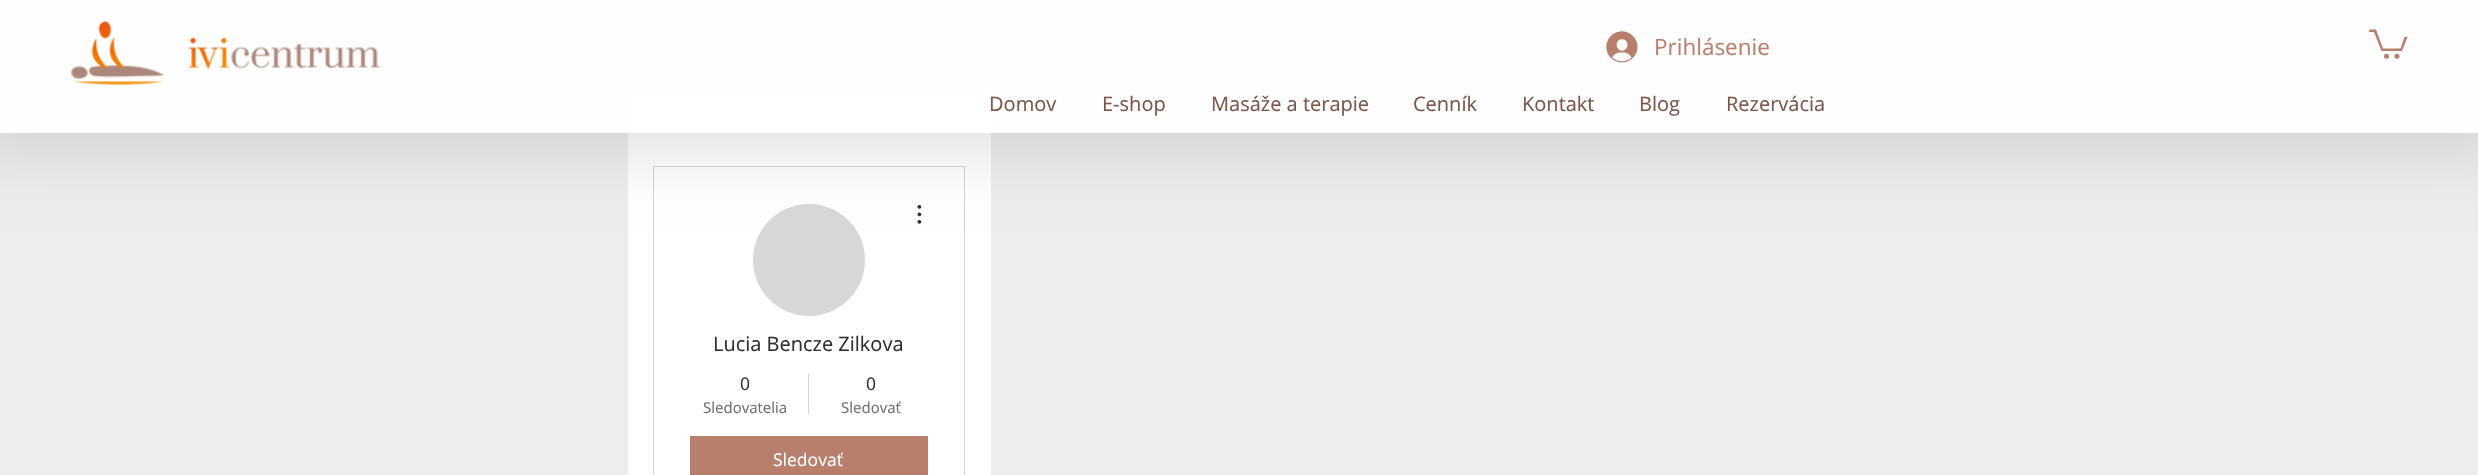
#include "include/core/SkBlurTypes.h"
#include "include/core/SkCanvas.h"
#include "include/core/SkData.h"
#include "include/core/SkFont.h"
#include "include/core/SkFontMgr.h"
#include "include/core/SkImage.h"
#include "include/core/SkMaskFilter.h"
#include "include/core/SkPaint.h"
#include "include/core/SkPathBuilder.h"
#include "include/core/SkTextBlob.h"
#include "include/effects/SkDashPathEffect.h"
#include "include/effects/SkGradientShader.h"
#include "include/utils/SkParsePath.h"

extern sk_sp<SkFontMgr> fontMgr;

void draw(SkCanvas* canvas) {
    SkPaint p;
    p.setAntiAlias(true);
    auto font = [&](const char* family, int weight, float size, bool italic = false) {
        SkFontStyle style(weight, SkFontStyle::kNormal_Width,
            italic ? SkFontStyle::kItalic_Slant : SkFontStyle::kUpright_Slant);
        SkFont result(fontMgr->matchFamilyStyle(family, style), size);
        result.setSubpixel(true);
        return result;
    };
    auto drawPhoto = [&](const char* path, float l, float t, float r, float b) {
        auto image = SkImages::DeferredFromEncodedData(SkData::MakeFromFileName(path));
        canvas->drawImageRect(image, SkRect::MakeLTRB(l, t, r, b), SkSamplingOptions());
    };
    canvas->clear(0xFFEDEDEE);
    p.setColor(0xFFFFFFFF);
    canvas->drawRect(SkRect::MakeLTRB(628, 91, 991, 475), p);
    p.setStyle(SkPaint::kStroke_Style);
    p.setStrokeWidth(1);
    p.setColor(0xFFD5D5D6);
    canvas->drawRect(SkRect::MakeLTRB(653.5f, 166.5f, 964.5f, 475.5f), p);
    p.setStyle(SkPaint::kFill_Style);
    p.setColor(0xFFD8D8D8);
    canvas->drawCircle(809, 260, 56, p);
    drawPhoto("media/3.png", 917, 205, 922, 224);
    canvas->save();
    canvas->clipPath(SkPathBuilder(SkPathFillType::kEvenOdd).moveTo(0, 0).lineTo(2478, 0).lineTo(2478, 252).lineTo(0, 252).close().moveTo(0, 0).lineTo(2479, 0).lineTo(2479, 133).lineTo(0, 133).close().detach(), true);
    p.setColor(0x1A000000);
    p.setMaskFilter(SkMaskFilter::MakeBlur(kNormal_SkBlurStyle, 31));
    canvas->drawRect(SkRect::MakeLTRB(-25, -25, 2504, 158), p);
    p.setMaskFilter(nullptr);
    canvas->restore();
    p.setColor(0xE6FFFFFF);
    canvas->drawRect(SkRect::MakeLTRB(0, 0, 2478, 133), p);
    drawPhoto("media/1.png", 71, 21, 380, 85);
    drawPhoto("media/2.png", 1606, 31, 1638, 63);
    auto font1 = font("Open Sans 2", 400, 22.5f);
    p.setColor(0xFFB97F6D);
    canvas->drawString("Prihlásenie", 1654, 55, font1, p);
    auto font2 = font("Open Sans", 400, 20);
    p.setColor(0xFF7B5549);
    {
        const struct { const char* s; float x, y; } items[] = {
            {"Domov", 989, 111},
            {"E-shop", 1102, 111},
            {"Masáže a terapie", 1211, 111},
            {"Cenník", 1413, 111},
            {"Kontakt", 1522, 111},
            {"Blog", 1639, 111},
            {"Rezervácia", 1726, 111},
        };
        for (auto [s, x, y] : items) {
            canvas->drawString(s, x, y, font2, p);
        }
    }
    p.setColor(0xFFB97F6D);
    canvas->drawPath(SkPathBuilder().moveTo(2407.5f, 37).lineTo(2402, 51).lineTo(2381.5f, 51).lineTo(2374, 32).lineTo(2369, 32).lineTo(2369, 29.5f).lineTo(2376, 29.5f).lineTo(2383, 48.5f).lineTo(2400.5f, 48.5f).lineTo(2404.5f, 37).detach(), p);
    canvas->drawCircle(2396.9f, 56.2f, 2.5f, p);
    canvas->drawCircle(2386.5f, 56.2f, 2.5f, p);
    p.setColor(0xFF2F2F30);
    canvas->drawString("Lucia Bencze Zilkova", 713, 351, font2, p);
    auto font3 = font("Open Sans", 400, 17.5f);
    canvas->drawString("0", 740, 390, font3, p);
    auto font4 = font("Open Sans", 400, 15);
    p.setColor(0xFF6D6D6E);
    canvas->drawString("Sledovatelia", 703, 413, font4, p);
    p.setColor(0xFFD5D5D6);
    canvas->drawRect(SkRect::MakeLTRB(808, 374, 809, 414), p);
    p.setColor(0xFF2F2F30);
    canvas->drawString("0", 866, 390, font3, p);
    p.setColor(0xFF6D6D6E);
    canvas->drawString("Sledovať", 841, 413, font4, p);
    p.setColor(0xFFB97F6D);
    canvas->drawRect(SkRect::MakeLTRB(690, 436, 928, 475), p);
    p.setColor(0xFFFFFFFF);
    canvas->drawString("Sledovať", 773, 466, font3, p);
}
